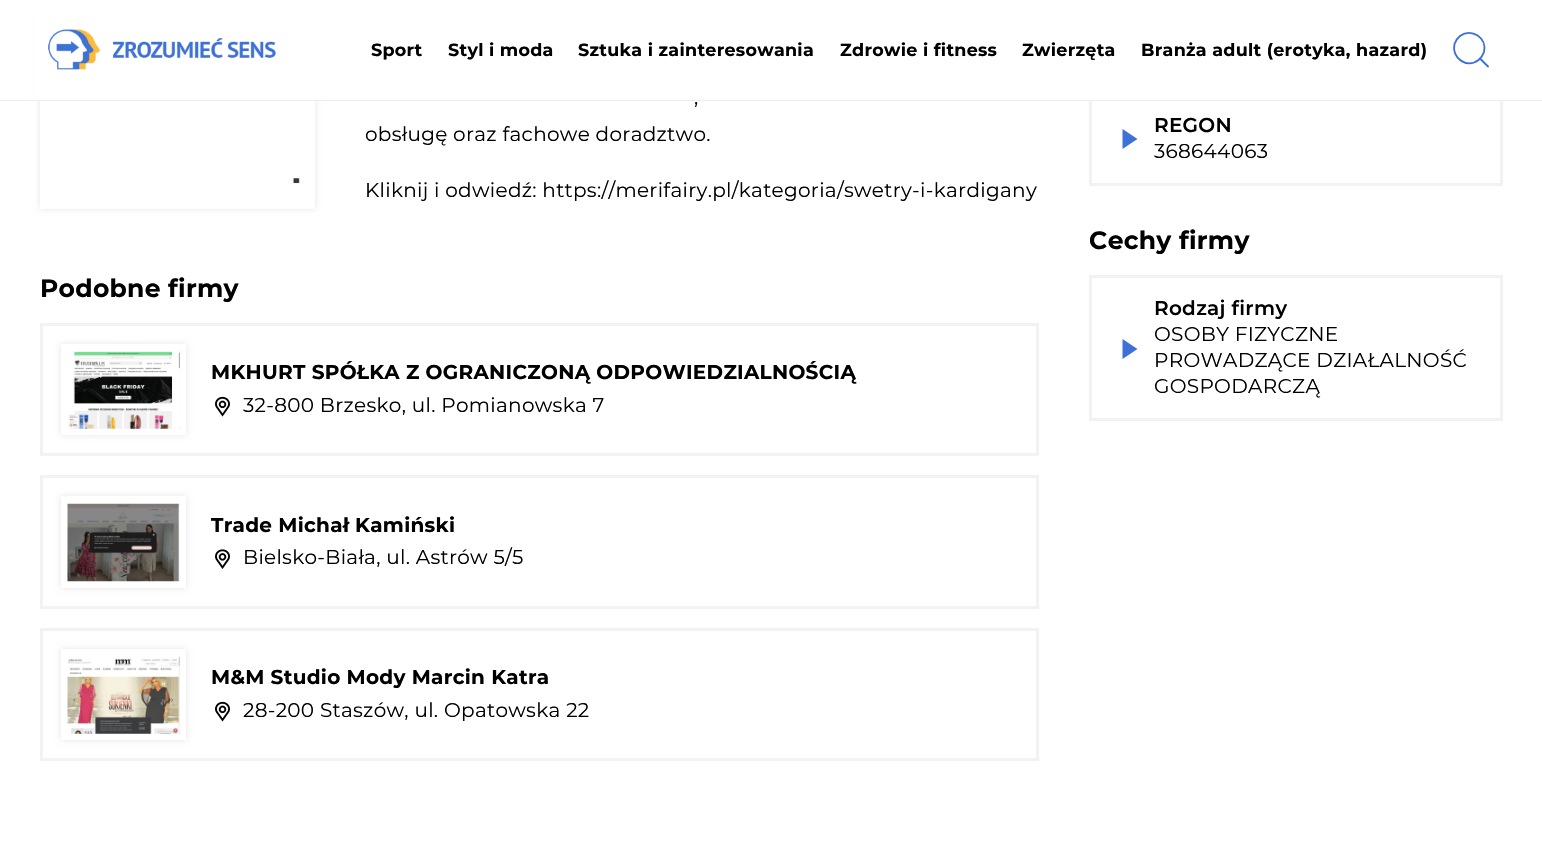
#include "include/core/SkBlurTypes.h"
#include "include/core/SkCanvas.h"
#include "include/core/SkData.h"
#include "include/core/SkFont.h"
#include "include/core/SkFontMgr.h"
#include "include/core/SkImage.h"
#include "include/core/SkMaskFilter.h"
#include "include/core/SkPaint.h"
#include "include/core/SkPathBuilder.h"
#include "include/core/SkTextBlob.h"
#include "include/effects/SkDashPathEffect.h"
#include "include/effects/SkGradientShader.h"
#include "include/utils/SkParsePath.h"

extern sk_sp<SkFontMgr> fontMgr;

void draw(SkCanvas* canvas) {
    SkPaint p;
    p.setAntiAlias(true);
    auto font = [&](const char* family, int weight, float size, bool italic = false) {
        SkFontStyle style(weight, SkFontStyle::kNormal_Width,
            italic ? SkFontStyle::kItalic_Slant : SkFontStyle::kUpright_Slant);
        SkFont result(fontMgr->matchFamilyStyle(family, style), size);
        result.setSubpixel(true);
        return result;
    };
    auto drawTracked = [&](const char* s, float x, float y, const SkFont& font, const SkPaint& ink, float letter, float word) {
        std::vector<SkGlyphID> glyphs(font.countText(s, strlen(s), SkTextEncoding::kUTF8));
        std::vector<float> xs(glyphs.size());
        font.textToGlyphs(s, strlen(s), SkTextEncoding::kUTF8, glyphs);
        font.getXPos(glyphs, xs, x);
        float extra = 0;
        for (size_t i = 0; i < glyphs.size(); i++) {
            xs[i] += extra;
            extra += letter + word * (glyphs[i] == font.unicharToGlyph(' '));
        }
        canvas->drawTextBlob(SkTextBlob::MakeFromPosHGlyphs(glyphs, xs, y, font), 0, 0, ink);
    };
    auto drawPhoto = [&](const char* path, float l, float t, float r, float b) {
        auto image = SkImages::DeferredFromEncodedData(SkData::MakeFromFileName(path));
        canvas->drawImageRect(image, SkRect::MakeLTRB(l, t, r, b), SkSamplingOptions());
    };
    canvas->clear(0xFFFFFFFF);
    canvas->save();
    canvas->clipPath(SkPathBuilder(SkPathFillType::kEvenOdd).moveTo(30, 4).lineTo(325, 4).lineTo(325, 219).lineTo(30, 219).close().moveTo(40, 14).lineTo(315, 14).lineTo(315, 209).lineTo(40, 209).close().detach(), true);
    p.setColor(0x1A000000);
    p.setMaskFilter(SkMaskFilter::MakeBlur(kNormal_SkBlurStyle, 3));
    canvas->drawRect(SkRect::MakeLTRB(40, 14, 315, 209), p);
    p.setMaskFilter(nullptr);
    canvas->restore();
    p.setStyle(SkPaint::kStroke_Style);
    p.setStrokeWidth(3);
    p.setColor(0xFFF3F2F2);
    canvas->drawRect(SkRect::MakeLTRB(1090.5f, -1.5f, 1501.5f, 184.5f), p);
    p.setStyle(SkPaint::kFill_Style);
    p.setColor(0xFFFFFFFF);
    canvas->drawRect(SkRect::MakeLTRB(36, 0, 1503, 100), p);
    p.setColor(0xFFEDEDED);
    canvas->drawRect(SkRect::MakeLTRB(0, 100, 1542, 101), p);
    drawPhoto("media/1.png", 48, 29, 276, 70);
    auto font1 = font("Montserrat", 700, 17.5f);
    p.setColor(0xFF000000);
    {
        const struct { const char* s; float x, y; } items[] = {
            {"Sport", 371, 56},
            {"Styl i moda", 448, 56},
            {"Sztuka i zainteresowania", 578, 56},
            {"Zdrowie i fitness", 840, 56},
            {"Zwierzęta", 1022, 56},
            {"Branża adult (erotyka, hazard)", 1141, 56},
        };
        for (auto [s, x, y] : items) {
            drawTracked(s, x, y, font1, p, 0.3f, 0);
        }
    }
    p.setStyle(SkPaint::kStroke_Style);
    p.setStrokeWidth(1.9f);
    p.setStrokeCap(SkPaint::kRound_Cap);
    p.setStrokeJoin(SkPaint::kRound_Join);
    p.setColor(0xFF3E71D7);
    canvas->drawPath(SkPathBuilder().moveTo(1488, 66.5f).lineTo(1480, 58.5f).moveTo(1454.5f, 44).cubicTo(1455.5f, 41, 1457.5f, 38, 1460, 36).cubicTo(1471.5f, 27.5f, 1487.5f, 38, 1484, 52).cubicTo(1483, 55, 1481, 58, 1478.5f, 60).cubicTo(1467, 69, 1451, 58, 1454.5f, 44).close().detach(), p);
    drawPhoto("media/2.png", 84, 101, 301, 184);
    auto font2 = font("Montserrat", 400, 20);
    p.setStyle(SkPaint::kFill_Style);
    p.setColor(0xFF000000);
    {
        const struct { const char* s; float x, y; } items[] = {
            {",", 694, 104},
            {"obsługę oraz fachowe doradztwo.", 365, 141},
            {"Kliknij i odwiedź: https://merifairy.pl/kategoria/swetry-i-kardigany", 365, 197},
        };
        for (auto [s, x, y] : items) {
            drawTracked(s, x, y, font2, p, 0.3f, 0);
        }
    }
    auto font3 = font("Montserrat", 700, 25);
    drawTracked("Podobne firmy", 40, 297, font3, p, 0.3f, 0);
    p.setStyle(SkPaint::kStroke_Style);
    p.setStrokeWidth(3);
    p.setStrokeCap(SkPaint::kButt_Cap);
    p.setStrokeJoin(SkPaint::kMiter_Join);
    p.setColor(0xFFF3F2F2);
    canvas->drawRect(SkRect::MakeLTRB(41.5f, 324.5f, 1037.5f, 454.5f), p);
    canvas->save();
    canvas->clipPath(SkPathBuilder(SkPathFillType::kEvenOdd).moveTo(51, 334).lineTo(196, 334).lineTo(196, 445).lineTo(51, 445).close().moveTo(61, 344).lineTo(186, 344).lineTo(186, 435).lineTo(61, 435).close().detach(), true);
    p.setStyle(SkPaint::kFill_Style);
    p.setColor(0x1A000000);
    p.setMaskFilter(SkMaskFilter::MakeBlur(kNormal_SkBlurStyle, 3));
    canvas->drawRect(SkRect::MakeLTRB(61, 344, 186, 435), p);
    p.setMaskFilter(nullptr);
    canvas->restore();
    drawPhoto("media/3.png", 68, 351, 180, 429);
    auto font4 = font("Montserrat", 700, 20);
    p.setColor(0xFF000000);
    drawTracked("MKHURT SPÓŁKA Z OGRANICZONĄ ODPOWIEDZIALNOŚCIĄ", 211, 379, font4, p, 0.3f, 0);
    drawPhoto("media/4.png", 215, 396, 230, 417);
    drawTracked("32-800 Brzesko, ul. Pomianowska 7", 243, 412, font2, p, 0.3f, 0);
    p.setStyle(SkPaint::kStroke_Style);
    p.setColor(0xFFF3F2F2);
    canvas->drawRect(SkRect::MakeLTRB(41.5f, 476.5f, 1037.5f, 607.5f), p);
    canvas->save();
    canvas->clipPath(SkPathBuilder(SkPathFillType::kEvenOdd).moveTo(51, 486).lineTo(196, 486).lineTo(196, 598).lineTo(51, 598).close().moveTo(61, 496).lineTo(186, 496).lineTo(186, 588).lineTo(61, 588).close().detach(), true);
    p.setStyle(SkPaint::kFill_Style);
    p.setColor(0x1A000000);
    p.setMaskFilter(SkMaskFilter::MakeBlur(kNormal_SkBlurStyle, 3));
    canvas->drawRect(SkRect::MakeLTRB(61, 496, 186, 588), p);
    p.setMaskFilter(nullptr);
    canvas->restore();
    drawPhoto("media/5.png", 67, 503, 180, 582);
    p.setColor(0xFF000000);
    drawTracked("Trade Michał Kamiński", 211, 532, font4, p, 0.3f, 0);
    drawPhoto("media/6.png", 215, 549, 230, 569);
    drawTracked("Bielsko-Biała, ul. Astrów 5/5", 243, 564, font2, p, 0.3f, 0);
    p.setStyle(SkPaint::kStroke_Style);
    p.setColor(0xFFF3F2F2);
    canvas->drawRect(SkRect::MakeLTRB(41.5f, 629.5f, 1037.5f, 759.5f), p);
    canvas->save();
    canvas->clipPath(SkPathBuilder(SkPathFillType::kEvenOdd).moveTo(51, 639).lineTo(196, 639).lineTo(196, 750).lineTo(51, 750).close().moveTo(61, 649).lineTo(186, 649).lineTo(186, 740).lineTo(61, 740).close().detach(), true);
    p.setStyle(SkPaint::kFill_Style);
    p.setColor(0x1A000000);
    p.setMaskFilter(SkMaskFilter::MakeBlur(kNormal_SkBlurStyle, 3));
    canvas->drawRect(SkRect::MakeLTRB(61, 649, 186, 740), p);
    p.setMaskFilter(nullptr);
    canvas->restore();
    drawPhoto("media/7.png", 67, 656, 180, 734);
    p.setColor(0xFF000000);
    drawTracked("M&M Studio Mody Marcin Katra", 211, 684, font4, p, 0.3f, 0);
    drawPhoto("media/4.png", 215, 701, 230, 722);
    drawTracked("28-200 Staszów, ul. Opatowska 22", 243, 717, font2, p, 0.3f, 0);
    auto font5 = font("Montserrat", 600, 20);
    drawTracked("REGON", 1154, 132, font5, p, 0.3f, 0);
    p.setColor(0xFF3E71D7);
    canvas->drawPath(SkPathBuilder().moveTo(1122.5f, 149).lineTo(1122.5f, 129).lineTo(1137.5f, 139).close().detach(), p);
    p.setColor(0xFF000000);
    drawTracked("368644063", 1154, 158, font2, p, 0.3f, 0);
    drawTracked("Cechy firmy", 1089, 249, font3, p, 0.3f, 0);
    p.setStyle(SkPaint::kStroke_Style);
    p.setColor(0xFFF3F2F2);
    canvas->drawRect(SkRect::MakeLTRB(1090.5f, 276.5f, 1501.5f, 419.5f), p);
    p.setStyle(SkPaint::kFill_Style);
    p.setColor(0xFF000000);
    drawTracked("Rodzaj firmy", 1154, 315, font5, p, 0.3f, 0);
    p.setColor(0xFF3E71D7);
    canvas->drawPath(SkPathBuilder().moveTo(1122.5f, 359).lineTo(1122.5f, 339).lineTo(1137.5f, 349).close().detach(), p);
    p.setColor(0xFF000000);
    {
        const struct { const char* s; float x, y; } items[] = {
            {"OSOBY FIZYCZNE", 1154, 341},
            {"PROWADZĄCE DZIAŁALNOŚĆ", 1154, 367},
            {"GOSPODARCZĄ", 1154, 393},
        };
        for (auto [s, x, y] : items) {
            drawTracked(s, x, y, font2, p, 0.3f, 0);
        }
    }
}
